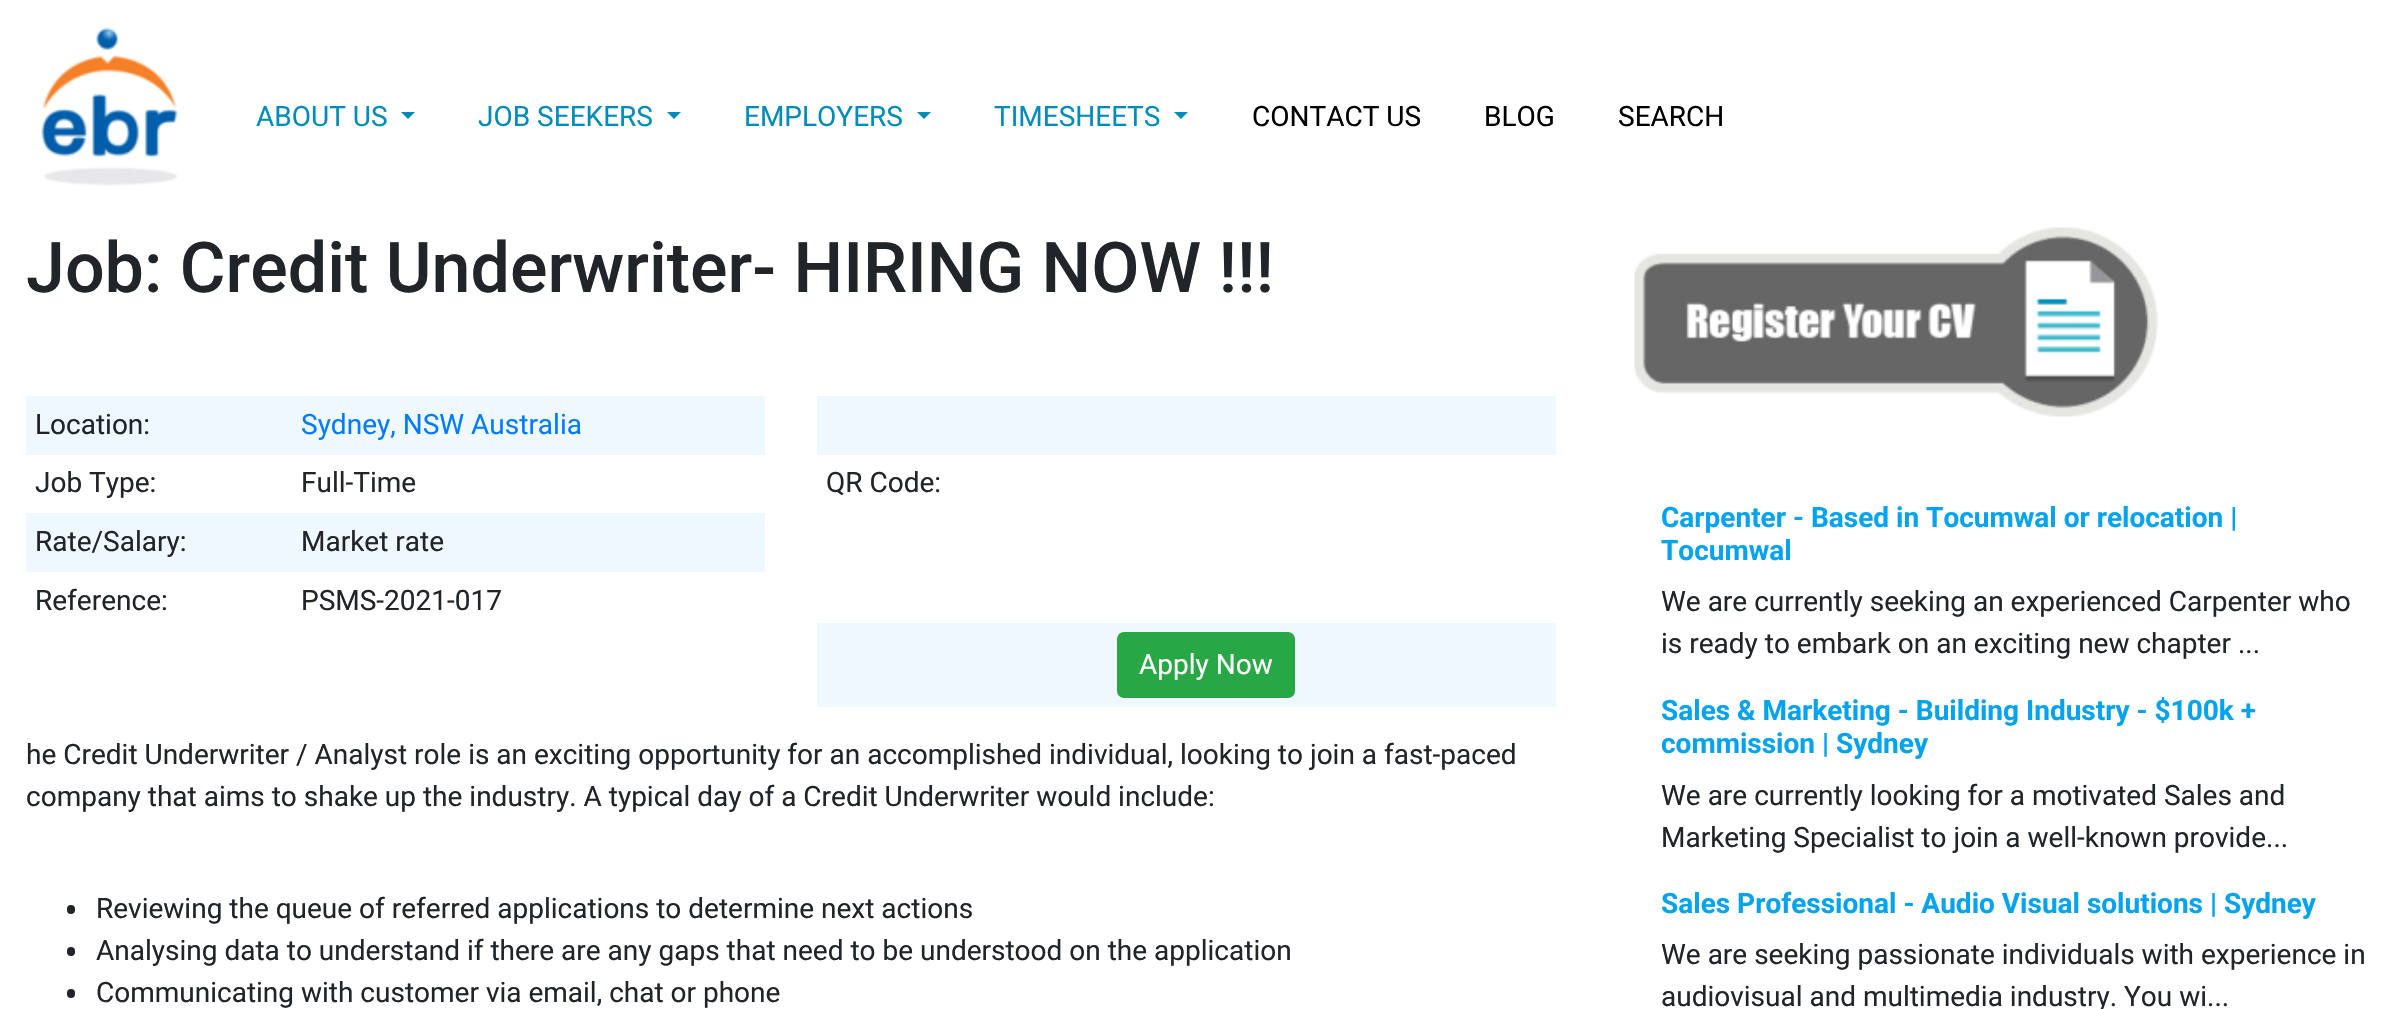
#include "include/core/SkBlurTypes.h"
#include "include/core/SkCanvas.h"
#include "include/core/SkData.h"
#include "include/core/SkFont.h"
#include "include/core/SkFontMgr.h"
#include "include/core/SkImage.h"
#include "include/core/SkMaskFilter.h"
#include "include/core/SkPaint.h"
#include "include/core/SkPathBuilder.h"
#include "include/core/SkTextBlob.h"
#include "include/effects/SkDashPathEffect.h"
#include "include/effects/SkGradientShader.h"
#include "include/utils/SkParsePath.h"

extern sk_sp<SkFontMgr> fontMgr;

void draw(SkCanvas* canvas) {
    SkPaint p;
    p.setAntiAlias(true);
    auto font = [&](const char* family, int weight, float size, bool italic = false) {
        SkFontStyle style(weight, SkFontStyle::kNormal_Width,
            italic ? SkFontStyle::kItalic_Slant : SkFontStyle::kUpright_Slant);
        SkFont result(fontMgr->matchFamilyStyle(family, style), size);
        result.setSubpixel(true);
        return result;
    };
    auto drawPhoto = [&](const char* path, float l, float t, float r, float b) {
        auto image = SkImages::DeferredFromEncodedData(SkData::MakeFromFileName(path));
        canvas->drawImageRect(image, SkRect::MakeLTRB(l, t, r, b), SkSamplingOptions());
    };
    canvas->clear(0xFFFFFFFF);
    drawPhoto("media/1.png", 41, 27, 178, 186);
    auto font1 = font("Roboto", 400, 28);
    p.setColor(0xFF008CBA);
    canvas->drawString("ABOUT US", 256, 126, font1, p);
    canvas->drawPath(SkPathBuilder().moveTo(401, 112).lineTo(415, 112).lineTo(408, 119).close().detach(), p);
    canvas->drawString("JOB SEEKERS", 478, 126, font1, p);
    canvas->drawPath(SkPathBuilder().moveTo(667, 112).lineTo(681, 112).lineTo(674, 119).close().detach(), p);
    canvas->drawString("EMPLOYERS", 744, 126, font1, p);
    canvas->drawPath(SkPathBuilder().moveTo(917, 112).lineTo(931, 112).lineTo(924, 119).close().detach(), p);
    canvas->drawString("TIMESHEETS", 994, 126, font1, p);
    canvas->drawPath(SkPathBuilder().moveTo(1174, 112).lineTo(1188, 112).lineTo(1181, 119).close().detach(), p);
    p.setColor(0xFF000000);
    {
        const struct { const char* s; float x, y; } items[] = {
            {"CONTACT US", 1252, 126},
            {"BLOG", 1484, 126},
            {"SEARCH", 1618, 126},
        };
        for (auto [s, x, y] : items) {
            canvas->drawString(s, x, y, font1, p);
        }
    }
    auto font2 = font("Roboto", 500, 70);
    p.setColor(0xFF212529);
    canvas->drawString("Job: Credit Underwriter- HIRING NOW !!!", 26, 292, font2, p);
    p.setColor(0xFFF0F8FF);
    canvas->drawRect(SkRect::MakeLTRB(26, 396, 765, 455), p);
    p.setColor(0xFF212529);
    canvas->drawString("Location:", 35, 434, font1, p);
    p.setColor(0xFF007BFF);
    canvas->drawString("Sydney, NSW Australia", 301, 434, font1, p);
    p.setColor(0xFF212529);
    canvas->drawString("Job Type:", 35, 492, font1, p);
    canvas->drawString("Full-Time", 301, 492, font1, p);
    p.setColor(0xFFF0F8FF);
    canvas->drawRect(SkRect::MakeLTRB(26, 513, 765, 572), p);
    p.setColor(0xFF212529);
    {
        const struct { const char* s; float x, y; } items[] = {
            {"Rate/Salary:", 35, 551},
            {"Market rate", 301, 551},
            {"Reference:", 35, 610},
            {"PSMS-2021-017", 301, 610},
        };
        for (auto [s, x, y] : items) {
            canvas->drawString(s, x, y, font1, p);
        }
    }
    p.setColor(0xFFF0F8FF);
    canvas->drawRect(SkRect::MakeLTRB(817, 396, 1556, 455), p);
    p.setColor(0xFF212529);
    canvas->drawString("QR Code:", 826, 492, font1, p);
    p.setColor(0xFFF0F8FF);
    canvas->drawRect(SkRect::MakeLTRB(817, 623, 1556, 707), p);
    p.setColor(0xFF28A745);
    canvas->drawRoundRect(SkRect::MakeLTRB(1118, 633, 1294, 697), 6, 6, p);
    p.setStyle(SkPaint::kStroke_Style);
    p.setStrokeWidth(2);
    canvas->drawRoundRect(SkRect::MakeLTRB(1118, 633, 1294, 697), 6, 6, p);
    p.setStyle(SkPaint::kFill_Style);
    p.setColor(0xFFFFFFFF);
    canvas->drawString("Apply Now", 1139, 674, font1, p);
    p.setColor(0xFF212529);
    canvas->drawString("he Credit Underwriter / Analyst role is an exciting opportunity for an accomplished individual, looking to join a fast-paced", 26, 764, font1, p);
    canvas->drawString("company that aims to shake up the industry. A typical day of a Credit Underwriter would include:", 26, 806, font1, p);
    canvas->drawRoundRect(SkRect::MakeLTRB(67, 905, 75, 914), 4, 4, p);
    canvas->drawString("Reviewing the queue of referred applications to determine next actions", 96, 918, font1, p);
    canvas->drawRoundRect(SkRect::MakeLTRB(67, 947, 75, 956), 4, 4, p);
    canvas->drawString("Analysing data to understand if there are any gaps that need to be understood on the application", 96, 960, font1, p);
    canvas->drawRoundRect(SkRect::MakeLTRB(67, 989, 75, 998), 4, 4, p);
    canvas->drawString("Communicating with customer via email, chat or phone", 96, 1002, font1, p);
    drawPhoto("media/2.png", 1634, 227, 2158, 417);
    auto font3 = font("Roboto", 700, 28);
    p.setColor(0xFF04A3ED);
    canvas->drawString("Carpenter - Based in Tocumwal or relocation |", 1661, 527, font3, p);
    canvas->drawString("Tocumwal", 1661, 560, font3, p);
    p.setColor(0xFF212529);
    canvas->drawString("We are currently seeking an experienced Carpenter who", 1661, 611, font1, p);
    canvas->drawString("is ready to embark on an exciting new chapter ...", 1661, 653, font1, p);
    p.setColor(0xFF04A3ED);
    canvas->drawString("Sales & Marketing - Building Industry - $100k +", 1661, 720, font3, p);
    canvas->drawString("commission | Sydney", 1661, 753, font3, p);
    p.setColor(0xFF212529);
    canvas->drawString("We are currently looking for a motivated Sales and", 1661, 805, font1, p);
    canvas->drawString("Marketing Specialist to join a well-known provide...", 1661, 847, font1, p);
    p.setColor(0xFF04A3ED);
    canvas->drawString("Sales Professional - Audio Visual solutions | Sydney", 1661, 913, font3, p);
    p.setColor(0xFF212529);
    canvas->drawString("We are seeking passionate individuals with experience in", 1661, 964, font1, p);
    canvas->drawString("audiovisual and multimedia industry. You wi...", 1661, 1006, font1, p);
}
